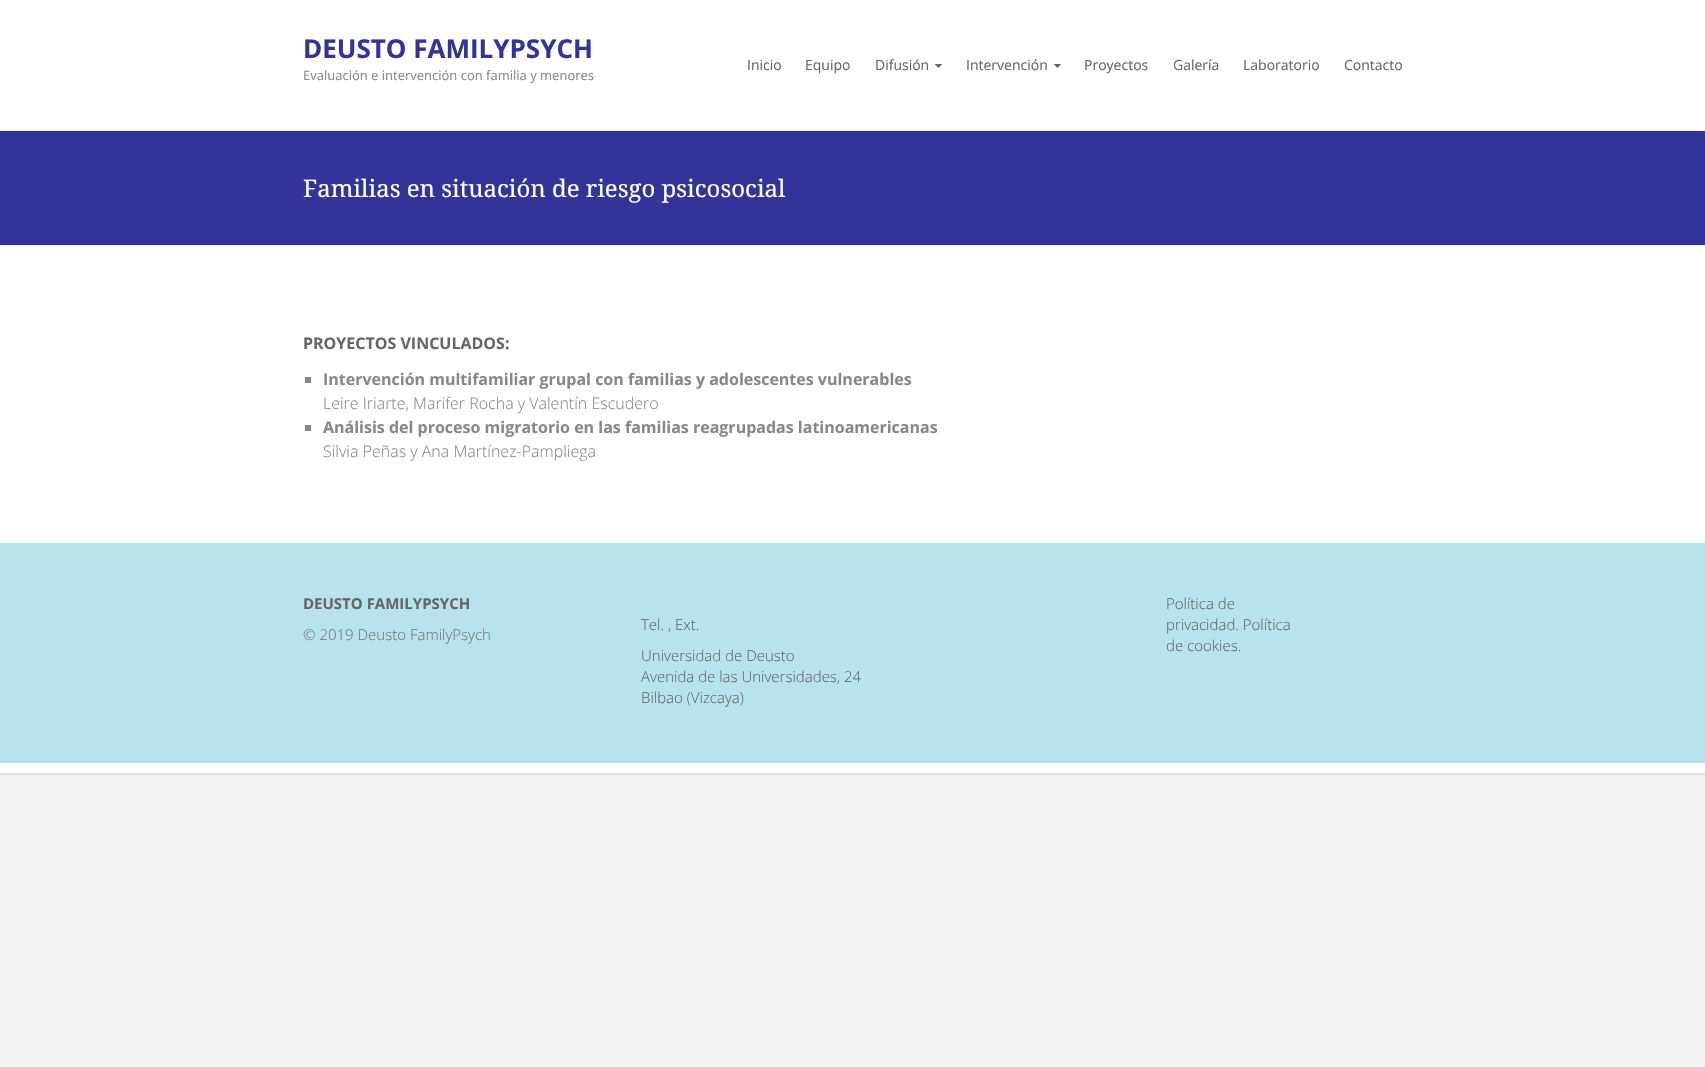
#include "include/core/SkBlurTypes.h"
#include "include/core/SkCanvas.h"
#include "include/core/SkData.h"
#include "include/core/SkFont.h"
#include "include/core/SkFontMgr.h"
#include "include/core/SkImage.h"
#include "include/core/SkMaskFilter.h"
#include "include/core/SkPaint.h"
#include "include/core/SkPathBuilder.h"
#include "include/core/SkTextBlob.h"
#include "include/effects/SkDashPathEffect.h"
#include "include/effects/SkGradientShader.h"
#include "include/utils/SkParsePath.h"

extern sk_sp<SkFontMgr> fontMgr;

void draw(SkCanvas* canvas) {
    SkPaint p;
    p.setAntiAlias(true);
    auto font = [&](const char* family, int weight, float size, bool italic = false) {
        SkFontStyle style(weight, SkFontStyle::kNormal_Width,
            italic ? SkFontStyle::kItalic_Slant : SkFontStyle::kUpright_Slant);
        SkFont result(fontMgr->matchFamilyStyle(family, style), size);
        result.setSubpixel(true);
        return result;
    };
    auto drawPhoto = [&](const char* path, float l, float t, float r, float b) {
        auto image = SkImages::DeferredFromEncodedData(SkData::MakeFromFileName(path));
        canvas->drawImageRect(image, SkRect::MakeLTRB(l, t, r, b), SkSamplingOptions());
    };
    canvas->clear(0xFFF2F2F2);
    p.setColor(0x1A000000);
    p.setMaskFilter(SkMaskFilter::MakeBlur(kNormal_SkBlurStyle, 1));
    canvas->drawRect(SkRect::MakeLTRB(0, 1, 1705, 774), p);
    p.setMaskFilter(nullptr);
    p.setColor(0xFFFFFFFF);
    canvas->drawRect(SkRect::MakeLTRB(0, 0, 1705, 773), p);
    p.setColor(0xFFF2F2F2);
    canvas->drawRect(SkRect::MakeLTRB(0, 130, 1705, 131), p);
    auto font1 = font("Open Sans", 700, 26);
    p.setColor(0xFF333399);
    canvas->drawString("DEUSTO FAMILYPSYCH", 303, 58, font1, p);
    auto font2 = font("Open Sans", 400, 13);
    p.setColor(0xFF888888);
    canvas->drawString("Evaluación e intervención con familia y menores", 303, 80, font2, p);
    auto font3 = font("Open Sans", 400, 14);
    p.setColor(0xFF666666);
    {
        const struct { const char* s; float x, y; } items[] = {
            {"Inicio", 747, 70},
            {"Equipo", 805, 70},
            {"Difusión", 875, 70},
        };
        for (auto [s, x, y] : items) {
            canvas->drawString(s, x, y, font3, p);
        }
    }
    drawPhoto("media/1.png", 935, 64, 942, 68);
    canvas->drawString("Intervención", 966, 70, font3, p);
    drawPhoto("media/1.png", 1054, 64, 1061, 68);
    {
        const struct { const char* s; float x, y; } items[] = {
            {"Proyectos", 1084, 70},
            {"Galería", 1173, 70},
            {"Laboratorio", 1243, 70},
            {"Contacto", 1344, 70},
        };
        for (auto [s, x, y] : items) {
            canvas->drawString(s, x, y, font3, p);
        }
    }
    p.setColor(0xFF333399);
    canvas->drawRect(SkRect::MakeLTRB(0, 131, 1705, 245), p);
    p.setColor(0xFFF2F2F2);
    canvas->drawRect(SkRect::MakeLTRB(0, 245, 1705, 246), p);
    auto font4 = font("Noto Serif", 400, 24);
    p.setColor(0xFFFFFFFF);
    canvas->drawString("Familias en situación de riesgo psicosocial", 303, 197, font4, p);
    auto font5 = font("Open Sans", 700, 16);
    p.setColor(0xFF666666);
    canvas->drawString("PROYECTOS VINCULADOS:", 303, 349, font5, p);
    p.setColor(0xFF888888);
    canvas->drawRect(SkRect::MakeLTRB(305, 377, 311, 383), p);
    canvas->drawString("Intervención multifamiliar grupal con familias y adolescentes vulnerables", 323, 385, font5, p);
    auto font6 = font("Open Sans", 300, 16);
    canvas->drawString("Leire Iriarte, Marifer Rocha y Valentín Escudero", 323, 409, font6, p);
    canvas->drawRect(SkRect::MakeLTRB(305, 425, 311, 431), p);
    canvas->drawString("Análisis del proceso migratorio en las familias reagrupadas latinoamericanas", 323, 433, font5, p);
    canvas->drawString("Silvia Peñas y Ana Martínez-Pampliega", 323, 457, font6, p);
    p.setColor(0xFFB8E3EC);
    canvas->drawRect(SkRect::MakeLTRB(0, 543, 1705, 763), p);
    auto font7 = font("Open Sans", 700, 15);
    p.setColor(0xFF666666);
    canvas->drawString("DEUSTO FAMILYPSYCH", 303, 609, font7, p);
    auto font8 = font("Open Sans", 300, 15);
    p.setColor(0xFF777777);
    canvas->drawString("© 2019 Deusto FamilyPsych", 303, 640, font8, p);
    p.setColor(0xFF666666);
    {
        const struct { const char* s; float x, y; } items[] = {
            {"Tel. , Ext.", 641, 630},
            {"Universidad de Deusto", 641, 661},
            {"Avenida de las Universidades, 24", 641, 682},
            {"Bilbao (Vizcaya)", 641, 703},
            {"Política de", 1166, 609},
            {"privacidad. Política", 1166, 630},
            {"de cookies.", 1166, 651},
        };
        for (auto [s, x, y] : items) {
            canvas->drawString(s, x, y, font8, p);
        }
    }
}
